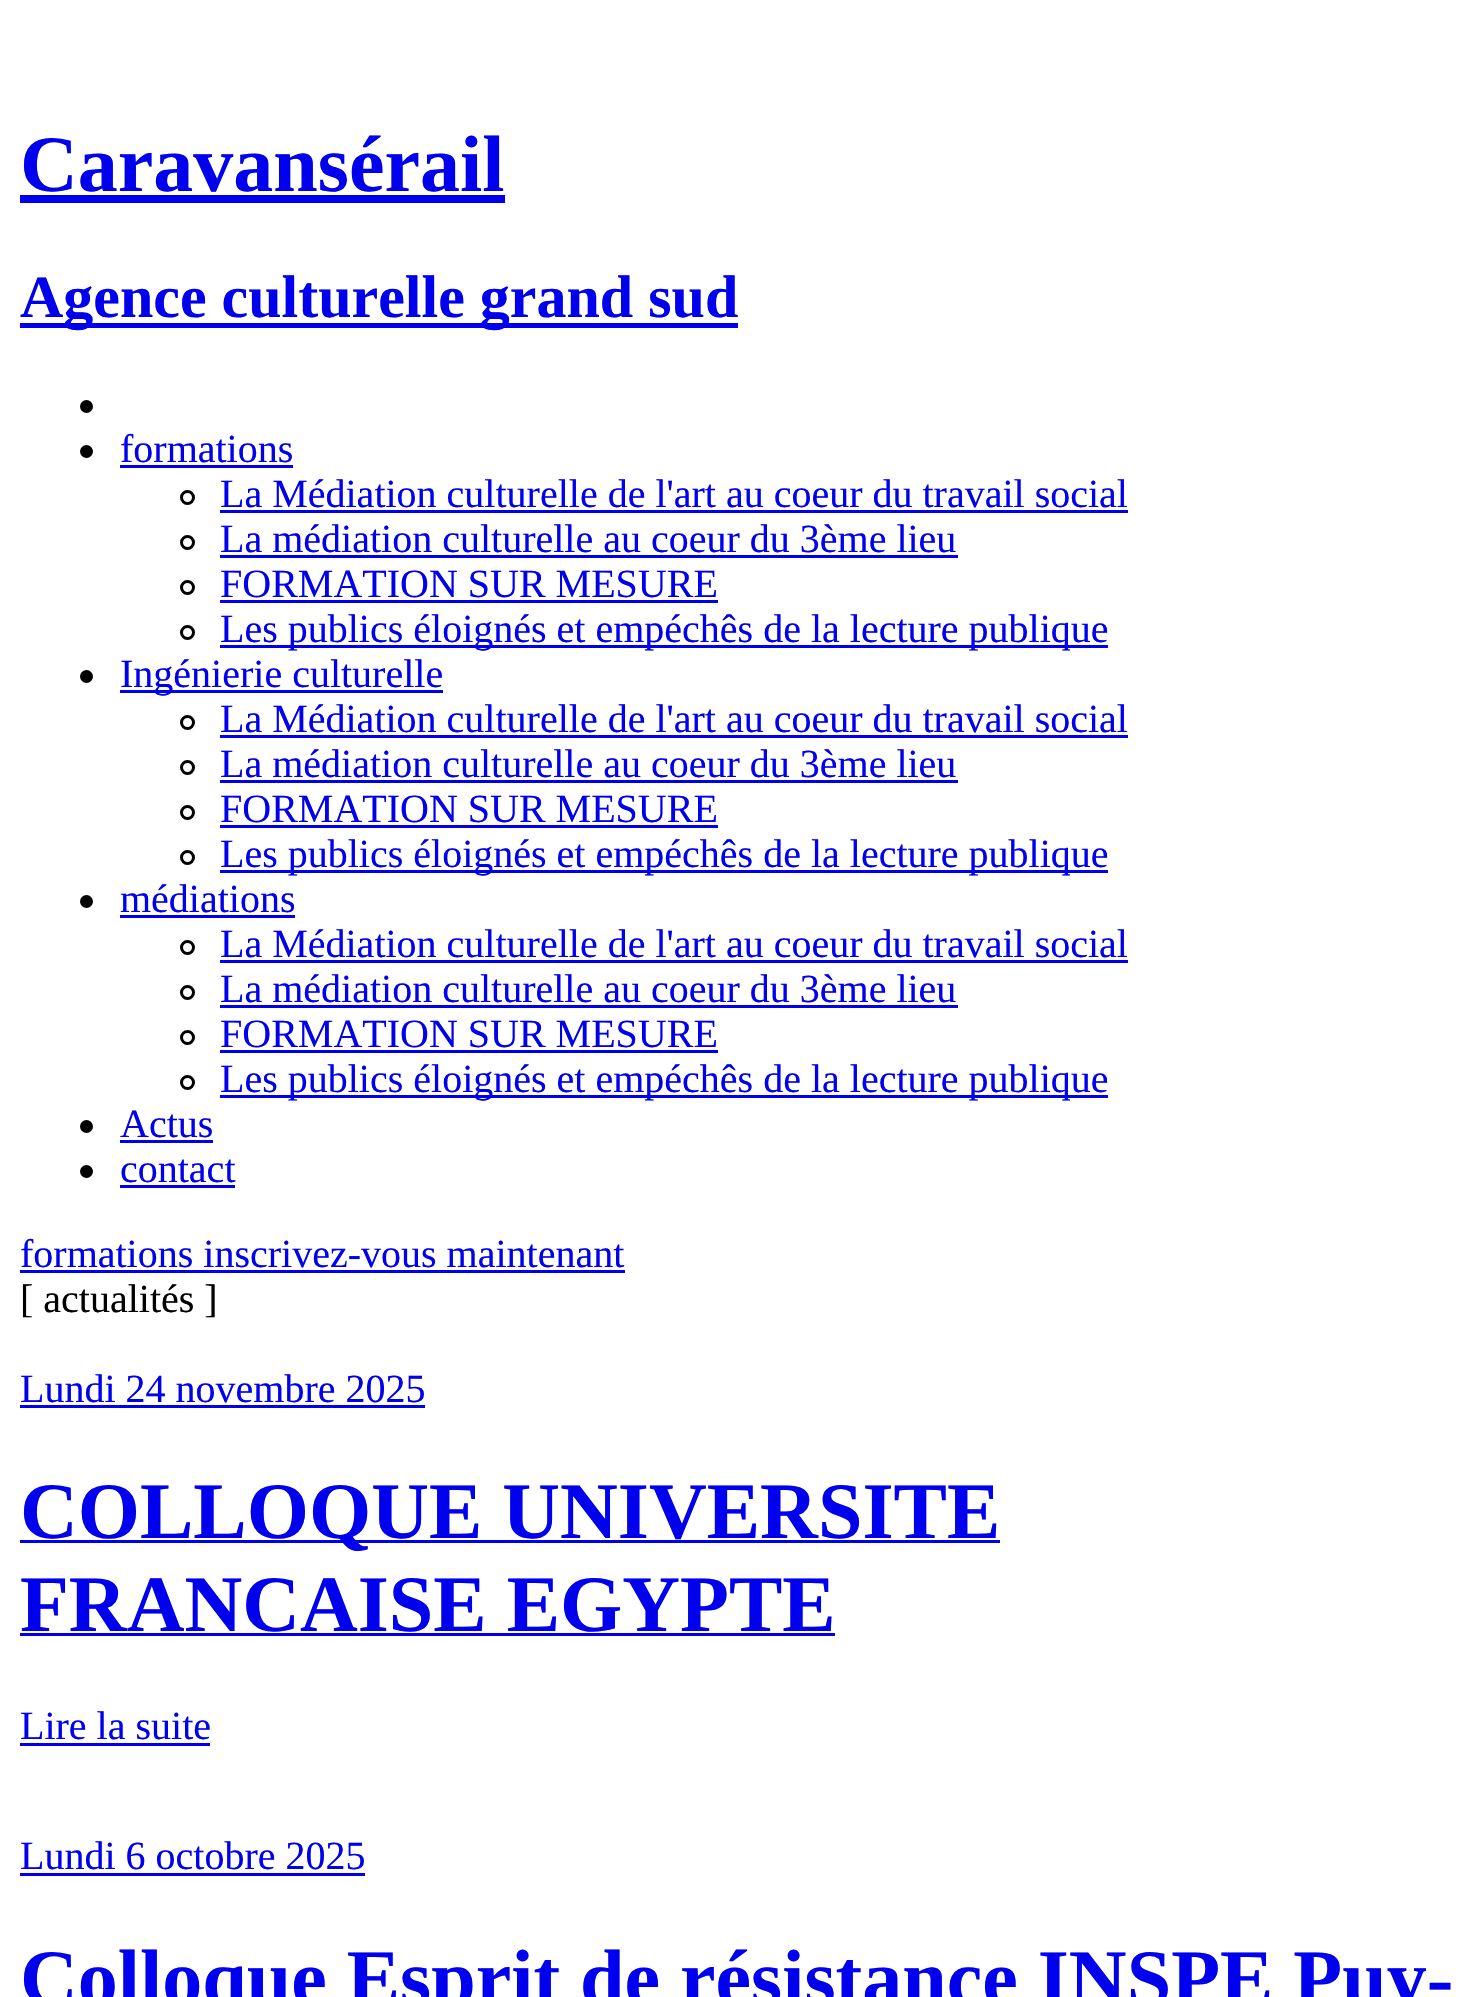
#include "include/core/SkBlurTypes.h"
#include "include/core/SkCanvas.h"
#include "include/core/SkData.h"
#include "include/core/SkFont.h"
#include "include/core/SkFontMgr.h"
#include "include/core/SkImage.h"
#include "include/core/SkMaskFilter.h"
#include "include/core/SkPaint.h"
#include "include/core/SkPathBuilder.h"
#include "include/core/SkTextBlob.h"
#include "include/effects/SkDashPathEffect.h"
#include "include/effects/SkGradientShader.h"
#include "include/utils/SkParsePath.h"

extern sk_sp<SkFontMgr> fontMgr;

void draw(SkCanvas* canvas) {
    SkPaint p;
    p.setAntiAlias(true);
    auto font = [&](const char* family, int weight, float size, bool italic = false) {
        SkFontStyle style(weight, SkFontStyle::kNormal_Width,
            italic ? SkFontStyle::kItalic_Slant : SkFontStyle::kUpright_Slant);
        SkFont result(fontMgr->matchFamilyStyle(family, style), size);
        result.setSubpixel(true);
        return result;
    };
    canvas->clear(0xFFFFFFFF);
    auto font1 = font("Liberation Serif", 700, 80);
    p.setColor(0xFF0000EE);
    canvas->drawString("Caravansérail", 20, 191, font1, p);
    canvas->drawRect(SkRect::MakeLTRB(20, 195, 505, 203), p);
    canvas->drawRect(SkRect::MakeLTRB(20, 323, 738, 328), p);
    auto font2 = font("Liberation Serif", 700, 60);
    canvas->drawString("Agence culturelle grand sud", 20, 317, font2, p);
    p.setColor(0xFF000000);
    canvas->drawCircle(86.5f, 406.5f, 6.5f, p);
    canvas->drawCircle(86.5f, 451.5f, 6.5f, p);
    auto font3 = font("Liberation Serif", 400, 40);
    p.setColor(0xFF0000EE);
    canvas->drawString("formations", 120, 462, font3, p);
    canvas->drawRect(SkRect::MakeLTRB(120, 465, 293, 468), p);
    p.setStyle(SkPaint::kStroke_Style);
    p.setStrokeWidth(3);
    p.setColor(0xFF000000);
    canvas->drawCircle(187.5f, 497.5f, 6, p);
    p.setStyle(SkPaint::kFill_Style);
    p.setColor(0xFF0000EE);
    canvas->drawString("La Médiation culturelle de l'art au coeur du travail social", 220, 507, font3, p);
    canvas->drawRect(SkRect::MakeLTRB(220, 510, 1128, 513), p);
    p.setStyle(SkPaint::kStroke_Style);
    p.setColor(0xFF000000);
    canvas->drawCircle(187.5f, 542.5f, 6, p);
    p.setStyle(SkPaint::kFill_Style);
    p.setColor(0xFF0000EE);
    canvas->drawString("La médiation culturelle au coeur du 3ème lieu", 220, 552, font3, p);
    canvas->drawRect(SkRect::MakeLTRB(220, 555, 958, 558), p);
    p.setStyle(SkPaint::kStroke_Style);
    p.setColor(0xFF000000);
    canvas->drawCircle(187.5f, 587.5f, 6, p);
    p.setStyle(SkPaint::kFill_Style);
    p.setColor(0xFF0000EE);
    canvas->drawString("FORMATION SUR MESURE", 220, 597, font3, p);
    canvas->drawRect(SkRect::MakeLTRB(220, 600, 718, 603), p);
    p.setStyle(SkPaint::kStroke_Style);
    p.setColor(0xFF000000);
    canvas->drawCircle(187.5f, 632.5f, 6, p);
    p.setStyle(SkPaint::kFill_Style);
    p.setColor(0xFF0000EE);
    canvas->drawRect(SkRect::MakeLTRB(220, 645, 1108, 648), p);
    canvas->drawString("Les publics éloignés et empéchês de la lecture publique", 220, 642, font3, p);
    p.setColor(0xFF000000);
    canvas->drawCircle(86.5f, 676.5f, 6.5f, p);
    p.setColor(0xFF0000EE);
    canvas->drawRect(SkRect::MakeLTRB(120, 690, 443, 693), p);
    canvas->drawString("Ingénierie culturelle", 120, 687, font3, p);
    p.setStyle(SkPaint::kStroke_Style);
    p.setColor(0xFF000000);
    canvas->drawCircle(187.5f, 722.5f, 6, p);
    p.setStyle(SkPaint::kFill_Style);
    p.setColor(0xFF0000EE);
    canvas->drawString("La Médiation culturelle de l'art au coeur du travail social", 220, 732, font3, p);
    canvas->drawRect(SkRect::MakeLTRB(220, 735, 1128, 738), p);
    p.setStyle(SkPaint::kStroke_Style);
    p.setColor(0xFF000000);
    canvas->drawCircle(187.5f, 767.5f, 6, p);
    p.setStyle(SkPaint::kFill_Style);
    p.setColor(0xFF0000EE);
    canvas->drawString("La médiation culturelle au coeur du 3ème lieu", 220, 777, font3, p);
    canvas->drawRect(SkRect::MakeLTRB(220, 780, 958, 783), p);
    p.setStyle(SkPaint::kStroke_Style);
    p.setColor(0xFF000000);
    canvas->drawCircle(187.5f, 812.5f, 6, p);
    p.setStyle(SkPaint::kFill_Style);
    p.setColor(0xFF0000EE);
    canvas->drawString("FORMATION SUR MESURE", 220, 822, font3, p);
    canvas->drawRect(SkRect::MakeLTRB(220, 825, 718, 828), p);
    p.setStyle(SkPaint::kStroke_Style);
    p.setColor(0xFF000000);
    canvas->drawCircle(187.5f, 857.5f, 6, p);
    p.setStyle(SkPaint::kFill_Style);
    p.setColor(0xFF0000EE);
    canvas->drawRect(SkRect::MakeLTRB(220, 870, 1108, 873), p);
    canvas->drawString("Les publics éloignés et empéchês de la lecture publique", 220, 867, font3, p);
    p.setColor(0xFF000000);
    canvas->drawCircle(86.5f, 901.5f, 6.5f, p);
    p.setColor(0xFF0000EE);
    canvas->drawString("médiations", 120, 912, font3, p);
    canvas->drawRect(SkRect::MakeLTRB(120, 915, 295, 918), p);
    p.setStyle(SkPaint::kStroke_Style);
    p.setColor(0xFF000000);
    canvas->drawCircle(187.5f, 947.5f, 6, p);
    p.setStyle(SkPaint::kFill_Style);
    p.setColor(0xFF0000EE);
    canvas->drawString("La Médiation culturelle de l'art au coeur du travail social", 220, 957, font3, p);
    canvas->drawRect(SkRect::MakeLTRB(220, 960, 1128, 963), p);
    p.setStyle(SkPaint::kStroke_Style);
    p.setColor(0xFF000000);
    canvas->drawCircle(187.5f, 992.5f, 6, p);
    p.setStyle(SkPaint::kFill_Style);
    p.setColor(0xFF0000EE);
    canvas->drawString("La médiation culturelle au coeur du 3ème lieu", 220, 1002, font3, p);
    canvas->drawRect(SkRect::MakeLTRB(220, 1005, 958, 1008), p);
    p.setStyle(SkPaint::kStroke_Style);
    p.setColor(0xFF000000);
    canvas->drawCircle(187.5f, 1037.5f, 6, p);
    p.setStyle(SkPaint::kFill_Style);
    p.setColor(0xFF0000EE);
    canvas->drawString("FORMATION SUR MESURE", 220, 1047, font3, p);
    canvas->drawRect(SkRect::MakeLTRB(220, 1050, 718, 1053), p);
    p.setStyle(SkPaint::kStroke_Style);
    p.setColor(0xFF000000);
    canvas->drawCircle(187.5f, 1082.5f, 6, p);
    p.setStyle(SkPaint::kFill_Style);
    p.setColor(0xFF0000EE);
    canvas->drawRect(SkRect::MakeLTRB(220, 1095, 1108, 1098), p);
    canvas->drawString("Les publics éloignés et empéchês de la lecture publique", 220, 1092, font3, p);
    p.setColor(0xFF000000);
    canvas->drawCircle(86.5f, 1126.5f, 6.5f, p);
    p.setColor(0xFF0000EE);
    canvas->drawString("Actus", 120, 1137, font3, p);
    canvas->drawRect(SkRect::MakeLTRB(120, 1140, 213, 1143), p);
    p.setColor(0xFF000000);
    canvas->drawCircle(86.5f, 1171.5f, 6.5f, p);
    p.setColor(0xFF0000EE);
    canvas->drawString("contact", 120, 1182, font3, p);
    canvas->drawRect(SkRect::MakeLTRB(120, 1185, 235, 1188), p);
    canvas->drawString("formations inscrivez-vous maintenant", 20, 1267, font3, p);
    canvas->drawRect(SkRect::MakeLTRB(20, 1270, 625, 1273), p);
    p.setColor(0xFF000000);
    canvas->drawString("[ actualités ]", 20, 1312, font3, p);
    p.setColor(0xFF0000EE);
    canvas->drawString("Lundi 24 novembre 2025", 20, 1402, font3, p);
    canvas->drawRect(SkRect::MakeLTRB(20, 1405, 425, 1408), p);
    canvas->drawRect(SkRect::MakeLTRB(20, 1540, 1000, 1543), p);
    canvas->drawString("COLLOQUE UNIVERSITE", 20, 1538, font1, p);
    canvas->drawString("FRANCAISE EGYPTE", 20, 1631, font1, p);
    canvas->drawRect(SkRect::MakeLTRB(20, 1633, 835, 1636), p);
    canvas->drawString("Lire la suite", 20, 1739, font3, p);
    canvas->drawRect(SkRect::MakeLTRB(20, 1743, 210, 1746), p);
    canvas->drawString("Lundi 6 octobre 2025", 20, 1869, font3, p);
    canvas->drawRect(SkRect::MakeLTRB(20, 1873, 365, 1876), p);
    canvas->drawString("Colloque Esprit de résistance INSPE Puy-", 20, 2005, font1, p);
}
